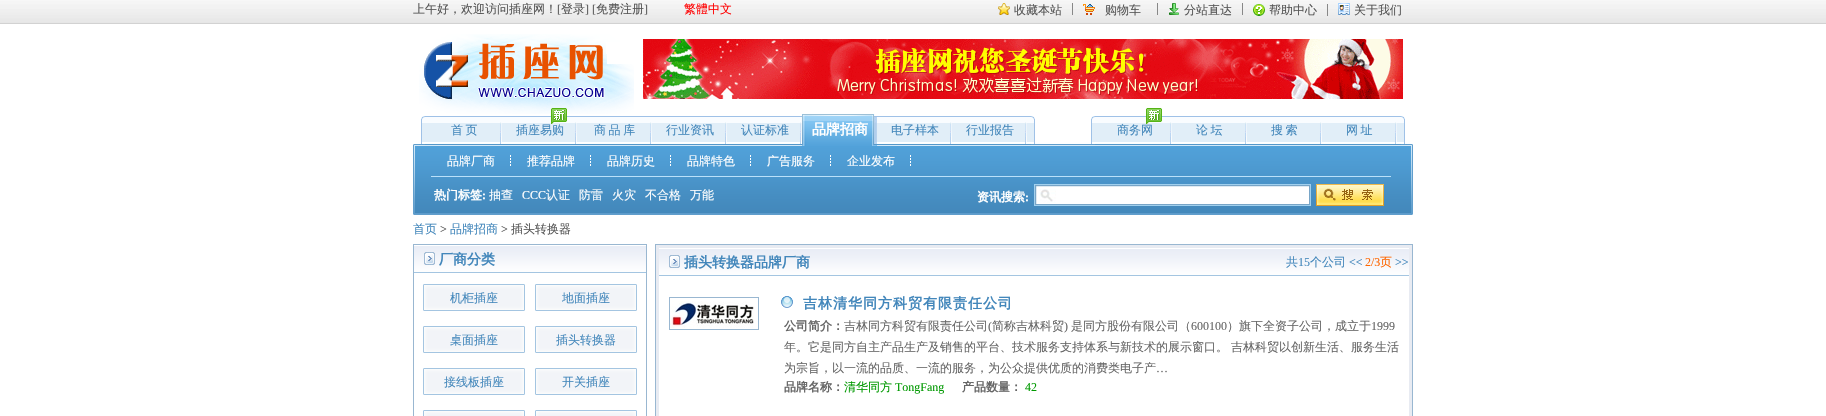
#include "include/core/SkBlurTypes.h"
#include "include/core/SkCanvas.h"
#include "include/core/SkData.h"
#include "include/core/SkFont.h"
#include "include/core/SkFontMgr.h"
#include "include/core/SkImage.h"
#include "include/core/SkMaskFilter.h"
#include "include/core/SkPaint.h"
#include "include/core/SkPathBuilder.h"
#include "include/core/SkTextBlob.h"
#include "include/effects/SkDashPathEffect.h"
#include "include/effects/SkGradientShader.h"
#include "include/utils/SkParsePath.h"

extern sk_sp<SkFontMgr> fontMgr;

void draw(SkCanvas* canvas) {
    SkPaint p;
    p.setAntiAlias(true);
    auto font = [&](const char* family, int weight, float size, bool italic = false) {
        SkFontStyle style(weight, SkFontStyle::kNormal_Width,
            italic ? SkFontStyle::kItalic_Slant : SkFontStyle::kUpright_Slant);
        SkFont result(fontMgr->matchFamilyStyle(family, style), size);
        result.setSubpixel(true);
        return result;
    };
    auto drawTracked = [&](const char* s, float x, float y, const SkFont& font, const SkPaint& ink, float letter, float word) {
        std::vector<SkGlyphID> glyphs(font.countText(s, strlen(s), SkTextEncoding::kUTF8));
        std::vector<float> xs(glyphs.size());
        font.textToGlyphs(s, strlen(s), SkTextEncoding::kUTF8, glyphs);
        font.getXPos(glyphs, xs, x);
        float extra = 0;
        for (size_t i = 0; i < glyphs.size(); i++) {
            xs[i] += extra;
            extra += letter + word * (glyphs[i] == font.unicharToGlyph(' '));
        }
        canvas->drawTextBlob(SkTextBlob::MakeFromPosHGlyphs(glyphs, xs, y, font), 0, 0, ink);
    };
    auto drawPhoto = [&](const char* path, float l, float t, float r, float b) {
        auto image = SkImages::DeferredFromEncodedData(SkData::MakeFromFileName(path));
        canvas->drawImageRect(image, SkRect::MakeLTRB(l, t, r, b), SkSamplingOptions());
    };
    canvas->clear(0xFFFFFFFF);
    drawPhoto("media/1.png", 0, 0, 1826, 24);
    auto font1 = font("WenQuanYi Zen Hei", 500, 12);
    p.setColor(0xFF555555);
    canvas->drawString("上午好，欢迎访问插座网！", 413, 13, font1, p);
    auto font2 = font("Liberation Serif", 400, 12);
    canvas->drawString("[", 557, 13, font2, p);
    canvas->drawString("登录", 561, 13, font1, p);
    canvas->drawString("] [", 585, 13, font2, p);
    canvas->drawString("免费注册", 596, 13, font1, p);
    canvas->drawString("]", 644, 13, font2, p);
    p.setColor(0xFFFF0000);
    canvas->drawString("繁體中文", 684, 13, font1, p);
    drawPhoto("media/2.png", 998, 3, 1073, 15);
    p.setColor(0xFF555555);
    canvas->drawString("收藏本站", 1014, 14, font1, p);
    drawPhoto("media/3.png", 1083, 3, 1158, 15);
    canvas->drawString("购物车", 1105, 14, font1, p);
    drawPhoto("media/4.png", 1169, 3, 1243, 15);
    canvas->drawString("分站直达", 1184, 14, font1, p);
    drawPhoto("media/5.png", 1253, 4, 1328, 16);
    canvas->drawString("帮助中心", 1269, 14, font1, p);
    drawPhoto("media/6.png", 1338, 3, 1350, 15);
    canvas->drawString("关于我们", 1354, 14, font1, p);
    drawPhoto("media/7.png", 419, 34, 634, 114);
    drawPhoto("media/8.png", 643, 39, 1403, 99);
    drawPhoto("media/9.png", 1403, 144, 1413, 215);
    drawPhoto("media/10.png", 413, 144, 423, 215);
    drawPhoto("media/11.png", 423, 144, 1403, 215);
    drawPhoto("media/12.png", 1031, 116, 1035, 144);
    drawPhoto("media/13.png", 421, 116, 425, 144);
    drawPhoto("media/14.png", 425, 116, 1031, 145);
    drawPhoto("media/15.png", 500, 122, 502, 144);
    p.setColor(0xFF4387BB);
    drawTracked("首 页", 451, 134, font1, p, 0, -1);
    drawPhoto("media/15.png", 575, 122, 577, 144);
    canvas->drawString("插座易购", 516, 134, font1, p);
    drawPhoto("media/16.png", 551, 108, 567, 124);
    drawPhoto("media/15.png", 650, 122, 652, 144);
    drawTracked("商 品 库", 594, 134, font1, p, 0, -1);
    drawPhoto("media/15.png", 725, 122, 727, 144);
    canvas->drawString("行业资讯", 666, 134, font1, p);
    drawPhoto("media/15.png", 800, 122, 802, 144);
    canvas->drawString("认证标准", 741, 134, font1, p);
    drawPhoto("media/17.png", 802, 114, 877, 146);
    auto font3 = font("WenQuanYi Zen Hei", 700, 14);
    p.setColor(0xFFFFFFFF);
    canvas->drawString("品牌招商", 812, 134, font3, p);
    drawPhoto("media/15.png", 950, 122, 952, 144);
    p.setColor(0xFF4387BB);
    canvas->drawString("电子样本", 891, 134, font1, p);
    drawPhoto("media/15.png", 1025, 122, 1027, 144);
    canvas->drawString("行业报告", 966, 134, font1, p);
    drawPhoto("media/12.png", 1401, 116, 1405, 144);
    drawPhoto("media/13.png", 1091, 116, 1095, 144);
    drawPhoto("media/18.png", 1095, 116, 1401, 145);
    drawPhoto("media/15.png", 1170, 122, 1172, 144);
    canvas->drawString("商务网", 1117, 134, font1, p);
    drawPhoto("media/16.png", 1146, 108, 1162, 124);
    drawPhoto("media/15.png", 1245, 122, 1247, 144);
    drawTracked("论 坛", 1196, 134, font1, p, 0, -1);
    drawPhoto("media/15.png", 1320, 122, 1322, 144);
    drawTracked("搜 索", 1271, 134, font1, p, 0, -1);
    drawPhoto("media/15.png", 1395, 122, 1397, 144);
    drawTracked("网 址", 1346, 134, font1, p, 0, -1);
    p.setColor(0xFFBAE0FA);
    canvas->drawRect(SkRect::MakeLTRB(431, 176, 1391, 177), p);
    drawPhoto("media/19.png", 510, 155, 511, 166);
    p.setColor(0xFFFFFFFF);
    canvas->drawString("品牌厂商", 447, 165, font1, p);
    drawPhoto("media/19.png", 590, 155, 591, 166);
    canvas->drawString("推荐品牌", 527, 165, font1, p);
    drawPhoto("media/19.png", 670, 155, 671, 166);
    canvas->drawString("品牌历史", 607, 165, font1, p);
    drawPhoto("media/19.png", 750, 155, 751, 166);
    canvas->drawString("品牌特色", 687, 165, font1, p);
    drawPhoto("media/19.png", 830, 155, 831, 166);
    canvas->drawString("广告服务", 767, 165, font1, p);
    drawPhoto("media/19.png", 910, 155, 911, 166);
    canvas->drawString("企业发布", 847, 165, font1, p);
    auto font4 = font("WenQuanYi Zen Hei", 700, 12);
    canvas->drawString("热门标签", 434, 199, font4, p);
    auto font5 = font("Liberation Serif", 700, 12);
    canvas->drawString(":", 482, 199, font5, p);
    canvas->drawString("抽查", 489, 199, font1, p);
    canvas->drawString("CCC", 522, 199, font2, p);
    {
        const struct { const char* s; float x, y; } items[] = {
            {"认证", 546, 199},
            {"防雷", 579, 199},
            {"火灾", 612, 199},
            {"不合格", 645, 199},
            {"万能", 690, 199},
        };
        for (auto [s, x, y] : items) {
            canvas->drawString(s, x, y, font1, p);
        }
    }
    canvas->drawString("资讯搜索", 977, 201, font4, p);
    canvas->drawString(":", 1025, 201, font5, p);
    drawPhoto("media/20.png", 1034, 184, 1311, 206);
    drawPhoto("media/21.png", 1316, 184, 1384, 206);
    p.setColor(0xFF4387BB);
    canvas->drawString("首页", 413, 233, font1, p);
    p.setColor(0xFF555555);
    canvas->drawString(">", 440, 233, font2, p);
    p.setColor(0xFF4387BB);
    canvas->drawString("品牌招商", 450, 233, font1, p);
    p.setColor(0xFF555555);
    canvas->drawString(">", 501, 233, font2, p);
    canvas->drawString("插头转换器", 511, 233, font1, p);
    p.setStyle(SkPaint::kStroke_Style);
    p.setStrokeWidth(1);
    p.setColor(0xFF99B7D1);
    canvas->drawRect(SkRect::MakeLTRB(413.5f, 244.5f, 646.5f, 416.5f), p);
    drawPhoto("media/22.png", 414, 246, 646, 273);
    p.setStyle(SkPaint::kFill_Style);
    p.setColor(0xFF4387BB);
    canvas->drawString("厂商分类", 439, 264, font3, p);
    drawPhoto("media/23.png", 423, 284, 525, 311);
    canvas->drawString("机柜插座", 450, 302, font1, p);
    drawPhoto("media/23.png", 535, 284, 637, 311);
    canvas->drawString("地面插座", 562, 302, font1, p);
    drawPhoto("media/23.png", 423, 326, 525, 353);
    canvas->drawString("桌面插座", 450, 344, font1, p);
    drawPhoto("media/23.png", 535, 326, 637, 353);
    canvas->drawString("插头转换器", 556, 344, font1, p);
    drawPhoto("media/23.png", 423, 368, 525, 395);
    canvas->drawString("接线板插座", 444, 386, font1, p);
    drawPhoto("media/23.png", 535, 368, 637, 395);
    canvas->drawString("开关插座", 562, 386, font1, p);
    drawPhoto("media/24.png", 423, 410, 525, 416);
    drawPhoto("media/24.png", 535, 410, 637, 416);
    p.setStyle(SkPaint::kStroke_Style);
    p.setColor(0xFF99B7D1);
    canvas->drawRect(SkRect::MakeLTRB(655.5f, 244.5f, 1412.5f, 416.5f), p);
    p.setStrokeWidth(3);
    p.setColor(0xFFE8EBF2);
    canvas->drawRect(SkRect::MakeLTRB(657.5f, 246.5f, 1410.5f, 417.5f), p);
    drawPhoto("media/25.png", 659, 249, 1409, 276);
    p.setStyle(SkPaint::kFill_Style);
    p.setColor(0xFF4387BB);
    canvas->drawString("插头转换器品牌厂商", 684, 267, font3, p);
    canvas->drawString("共", 1286, 266, font1, p);
    canvas->drawString("15", 1298, 266, font2, p);
    canvas->drawString("个公司", 1310, 266, font1, p);
    canvas->drawString("<<", 1349, 266, font2, p);
    p.setColor(0xFFFF6600);
    canvas->drawString("2/3", 1365, 266, font2, p);
    canvas->drawString("页", 1380, 266, font1, p);
    p.setColor(0xFF4387BB);
    canvas->drawString(">>", 1395, 266, font2, p);
    p.setStyle(SkPaint::kStroke_Style);
    p.setStrokeWidth(1);
    p.setColor(0xFF99B7D1);
    canvas->drawRect(SkRect::MakeLTRB(669.5f, 297.5f, 758.5f, 329.5f), p);
    drawPhoto("media/26.png", 670, 301, 754, 328);
    drawPhoto("media/27.png", 781, 296, 793, 308);
    p.setStyle(SkPaint::kFill_Style);
    p.setColor(0xFF4387BB);
    drawTracked("吉林清华同方科贸有限责任公司", 803, 308, font3, p, 1, 0);
    p.setColor(0xFF666666);
    canvas->drawString("公司简介：", 784, 330, font4, p);
    canvas->drawString("吉林同方科贸有限责任公司", 844, 330, font1, p);
    canvas->drawString("(", 988, 330, font2, p);
    canvas->drawString("简称吉林科贸", 992, 330, font1, p);
    canvas->drawString(")", 1064, 330, font2, p);
    canvas->drawString("是同方股份有限公司（", 1071, 330, font1, p);
    canvas->drawString("600100", 1191, 330, font2, p);
    canvas->drawString("）旗下全资子公司，成立于", 1227, 330, font1, p);
    canvas->drawString("1999", 1371, 330, font2, p);
    {
        const struct { const char* s; float x, y; } items[] = {
            {"年。它是同方自主产品生产及销售的平台、技术服务支持体系与新技术的展示窗口。", 784, 351},
            {"吉林科贸以创新生活、服务生活", 1231, 351},
            {"为宗旨，以一流的品质、一流的服务，为公众提供优质的消费类电子产", 784, 372},
        };
        for (auto [s, x, y] : items) {
            canvas->drawString(s, x, y, font1, p);
        }
    }
    canvas->drawString("…", 1156, 372, font2, p);
    canvas->drawString("品牌名称：", 784, 391, font4, p);
    p.setColor(0xFF009900);
    canvas->drawString("清华同方", 844, 391, font1, p);
    canvas->drawString("TongFang", 895, 391, font2, p);
    p.setColor(0xFF666666);
    canvas->drawString("产品数量：", 962, 391, font4, p);
    p.setColor(0xFF009900);
    canvas->drawString("42", 1025, 391, font2, p);
}
